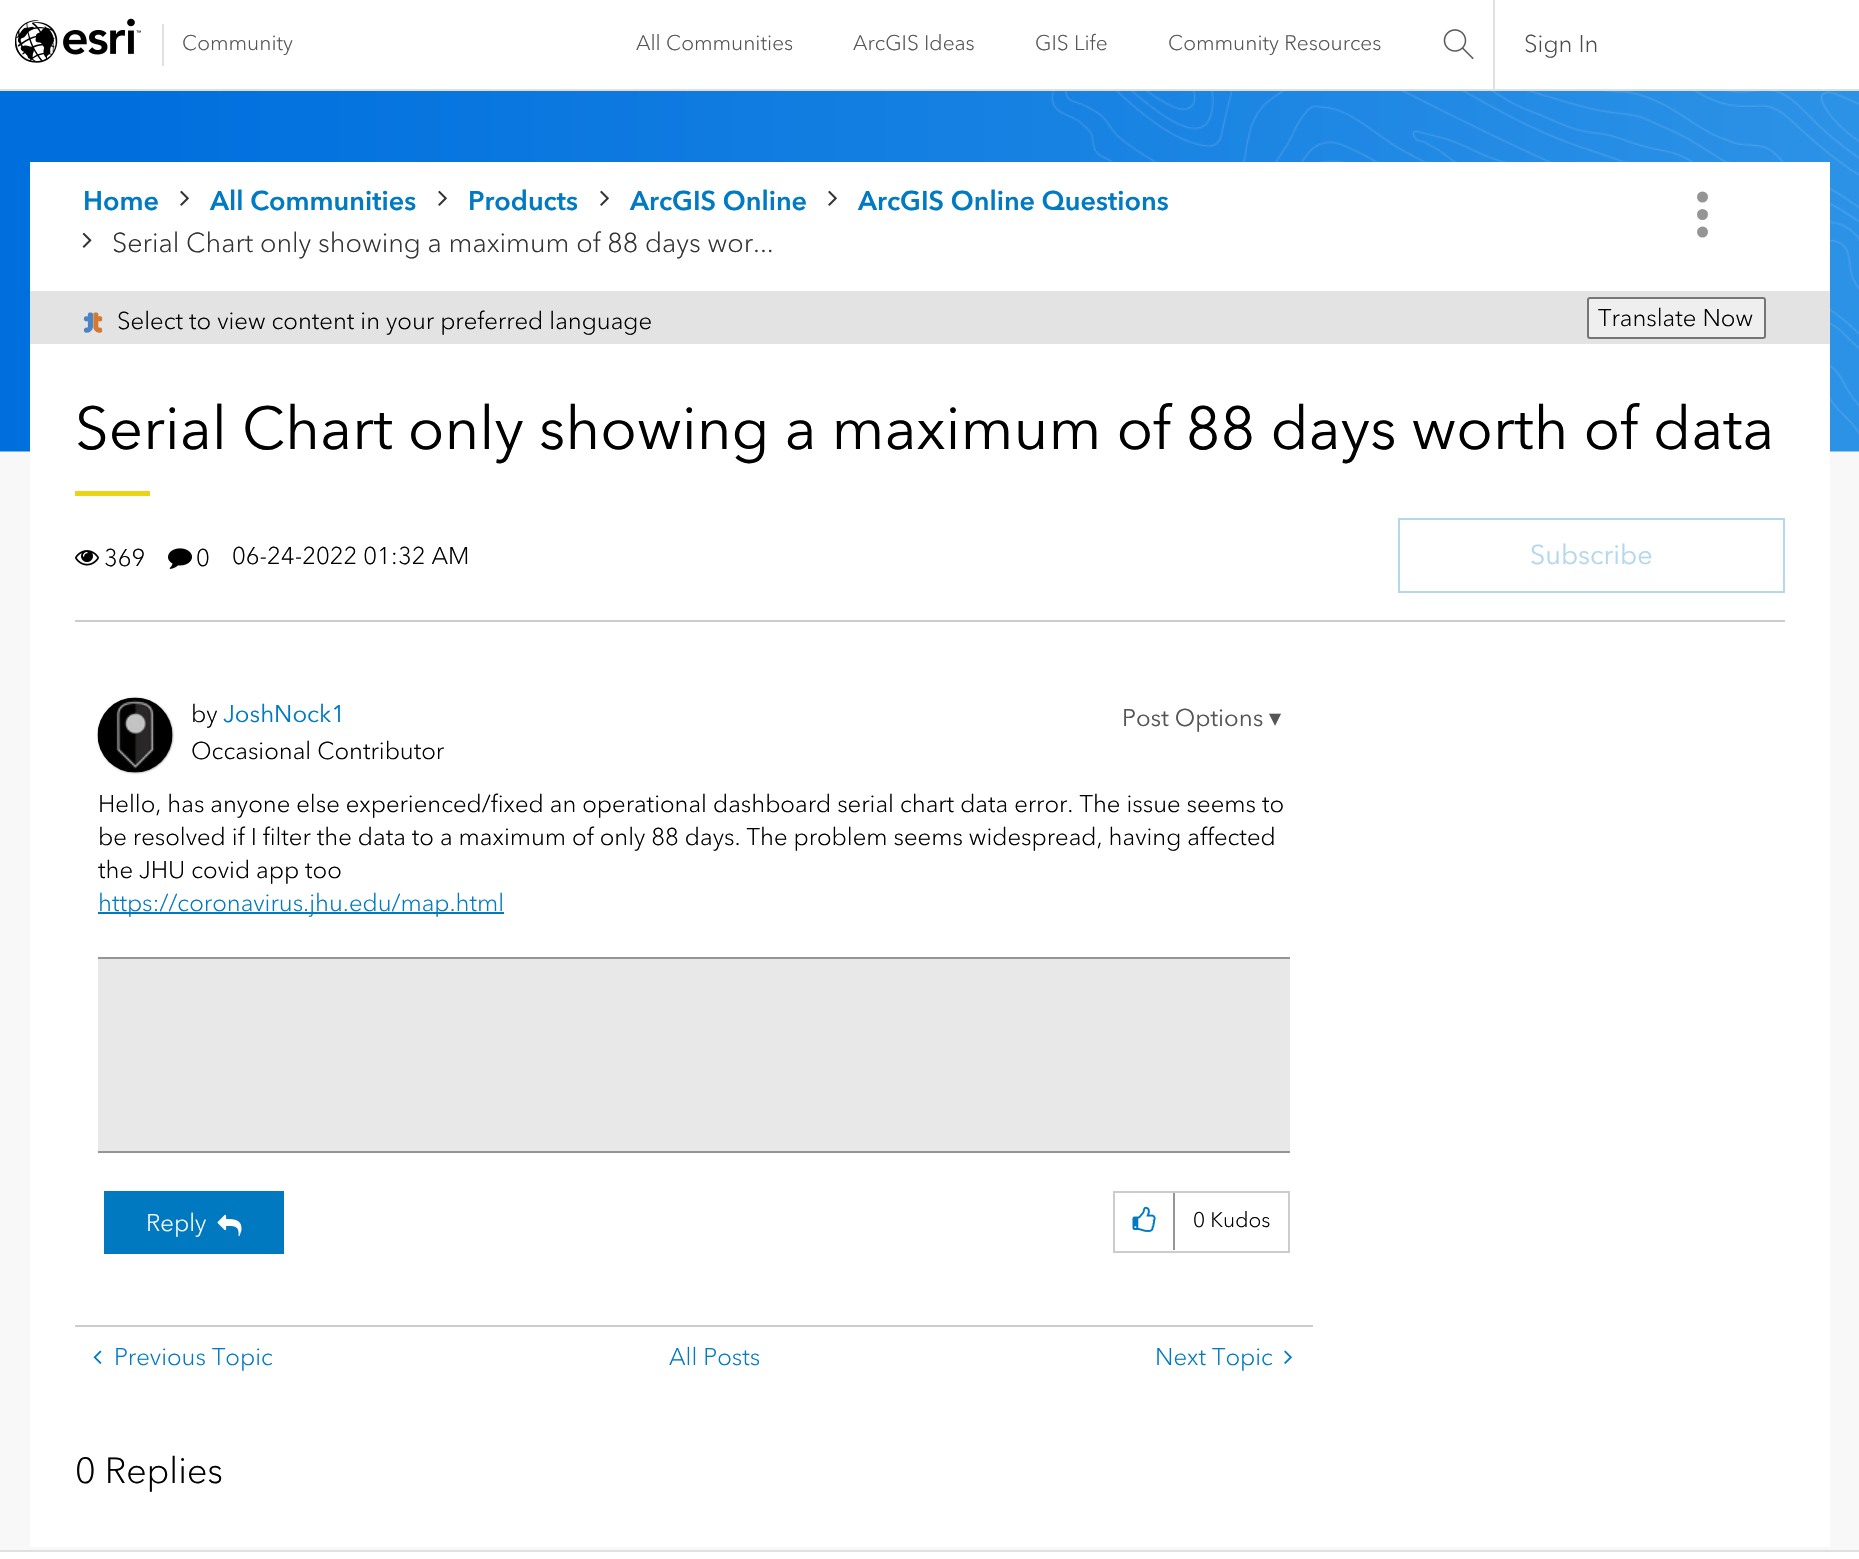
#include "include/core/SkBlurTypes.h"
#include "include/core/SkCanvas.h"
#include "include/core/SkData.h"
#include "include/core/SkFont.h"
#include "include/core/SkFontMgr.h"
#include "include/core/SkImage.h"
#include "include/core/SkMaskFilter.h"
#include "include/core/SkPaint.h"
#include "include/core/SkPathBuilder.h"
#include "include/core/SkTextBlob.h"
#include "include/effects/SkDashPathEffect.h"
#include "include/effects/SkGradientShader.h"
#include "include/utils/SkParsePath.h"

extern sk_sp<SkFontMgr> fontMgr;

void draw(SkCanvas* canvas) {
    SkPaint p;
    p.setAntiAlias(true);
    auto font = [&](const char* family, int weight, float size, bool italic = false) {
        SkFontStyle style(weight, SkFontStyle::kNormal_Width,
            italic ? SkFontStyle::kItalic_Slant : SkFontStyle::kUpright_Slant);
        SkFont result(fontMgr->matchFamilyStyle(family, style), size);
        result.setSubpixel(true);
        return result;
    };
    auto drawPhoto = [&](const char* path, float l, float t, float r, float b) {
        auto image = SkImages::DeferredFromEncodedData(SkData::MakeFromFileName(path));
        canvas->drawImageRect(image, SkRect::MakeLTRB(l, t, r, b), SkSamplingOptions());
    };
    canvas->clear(0xFFF8F8F8);
    p.setColor(0xFFFFFFFF);
    canvas->drawRect(SkRect::MakeLTRB(0, 0, 1859, 89), p);
    p.setColor(0xFFE0E0E0);
    canvas->drawRect(SkRect::MakeLTRB(0, 89, 1859, 91), p);
    drawPhoto("media/1.png", 15, 18, 141, 63);
    canvas->drawRect(SkRect::MakeLTRB(162, 24, 164, 66), p);
    auto font1 = font("Avenir Next", 300, 21);
    p.setColor(0xFF555555);
    {
        const struct { const char* s; float x, y; } items[] = {
            {"Community", 182, 50},
            {"All Communities", 636, 50},
            {"ArcGIS Ideas", 853, 50},
            {"GIS Life", 1035, 50},
            {"Community Resources", 1168, 50},
        };
        for (auto [s, x, y] : items) {
            canvas->drawString(s, x, y, font1, p);
        }
    }
    p.setColor(0xFFE0E0E0);
    canvas->drawRect(SkRect::MakeLTRB(1493, 0, 1495, 89), p);
    drawPhoto("media/2.png", 1443, 29, 1474, 60);
    auto font2 = font("Avenir Next", 300, 24);
    p.setColor(0xFF4C4C4C);
    canvas->drawString("Sign In", 1524, 52, font2, p);
    drawPhoto("media/3.png", 0, 91, 1859, 452);
    p.setColor(0xFFFFFFFF);
    canvas->drawRect(SkRect::MakeLTRB(30, 162, 1830, 291), p);
    auto font3 = font("Avenir Next", 700, 27);
    p.setColor(0xFF007AC2);
    canvas->drawString("Home", 83, 210, font3, p);
    drawPhoto("media/4.png", 180, 190, 189, 206);
    canvas->drawString("All Communities", 210, 210, font3, p);
    drawPhoto("media/4.png", 438, 190, 447, 206);
    canvas->drawString("Products", 468, 210, font3, p);
    drawPhoto("media/4.png", 600, 190, 609, 206);
    canvas->drawString("ArcGIS Online", 630, 210, font3, p);
    drawPhoto("media/4.png", 828, 190, 837, 206);
    canvas->drawString("ArcGIS Online Questions", 858, 210, font3, p);
    drawPhoto("media/5.png", 82, 232, 92, 248);
    auto font4 = font("Avenir Next", 300, 27);
    p.setColor(0xFF333333);
    canvas->drawString("Serial Chart only showing a maximum of 88 days wor...", 112, 252, font4, p);
    p.setColor(0xFF959595);
    canvas->drawCircle(1702.5f, 197, 5.5f, p);
    canvas->drawCircle(1702.5f, 214.5f, 5.5f, p);
    canvas->drawCircle(1702.5f, 232, 5.5f, p);
    p.setColor(0xFFE3E3E3);
    canvas->drawRect(SkRect::MakeLTRB(30, 291, 1830, 344), p);
    drawPhoto("media/6.png", 83, 312, 103, 333);
    p.setColor(0xFF000000);
    canvas->drawString("Select to view content in your preferred language", 117, 329, font2, p);
    p.setColor(0xFFEFEFEF);
    canvas->drawRoundRect(SkRect::MakeLTRB(1588, 298, 1765, 338), 2, 2, p);
    p.setStyle(SkPaint::kStroke_Style);
    p.setStrokeWidth(2);
    p.setColor(0xFF767676);
    canvas->drawRoundRect(SkRect::MakeLTRB(1588, 298, 1765, 338), 2, 2, p);
    p.setStyle(SkPaint::kFill_Style);
    p.setColor(0xFF000000);
    canvas->drawString("Translate Now", 1598, 326, font2, p);
    p.setColor(0xFFFFFFFF);
    canvas->drawRect(SkRect::MakeLTRB(30, 344, 1830, 1547), p);
    auto font5 = font("Avenir Next", 400, 60);
    p.setColor(0xFF000000);
    canvas->drawString("Serial Chart only showing a maximum of 88 days worth of data", 75, 449, font5, p);
    p.setColor(0xFFEDD317);
    canvas->drawRect(SkRect::MakeLTRB(75, 491, 150, 496), p);
    p.setStyle(SkPaint::kStroke_Style);
    p.setColor(0xFFB3D7ED);
    canvas->drawRect(SkRect::MakeLTRB(1399, 519, 1784, 592), p);
    auto font6 = font("Avenir Next", 400, 27);
    p.setStyle(SkPaint::kFill_Style);
    canvas->drawString("Subscribe", 1530, 564, font6, p);
    drawPhoto("media/7.png", 75, 550, 99, 566);
    p.setColor(0xFF000000);
    canvas->drawString("369", 104, 566, font2, p);
    drawPhoto("media/8.png", 168, 548, 192, 569);
    canvas->drawString("0", 196, 566, font2, p);
    canvas->drawString("06-24-2022 01:32 AM", 232, 564, font2, p);
    p.setColor(0xFFCCCCCC);
    canvas->drawRect(SkRect::MakeLTRB(75, 620, 1785, 622), p);
    p.setColor(0xFF959595);
    p.setMaskFilter(SkMaskFilter::MakeBlur(kNormal_SkBlurStyle, 1));
    canvas->drawRoundRect(SkRect::MakeLTRB(98, 698, 173, 773), 37.5f, 37.5f, p);
    p.setMaskFilter(nullptr);
    drawPhoto("media/9.png", 97, 697, 173, 773);
    p.setColor(0xFF000000);
    canvas->drawString("by", 191, 722, font2, p);
    auto font7 = font("Avenir Next", 400, 24);
    p.setColor(0xFF007AC2);
    canvas->drawString("JoshNock1", 223, 722, font7, p);
    p.setColor(0xFF000000);
    canvas->drawString("Occasional Contributor", 191, 759, font2, p);
    p.setColor(0xFF555555);
    canvas->drawString("Post Options", 1122, 726, font7, p);
    auto font8 = font("DejaVu Sans", 400, 24);
    canvas->drawString("▾", 1269, 726, font8, p);
    p.setColor(0xFF000000);
    {
        const struct { const char* s; float x, y; } items[] = {
            {"Hello, has anyone else experienced/fixed an operational dashboard serial chart data error. The issue seems to", 98, 812},
            {"be resolved if I filter the data to a maximum of only 88 days. The problem seems widespread, having affected", 98, 845},
            {"the JHU covid app too", 98, 878},
        };
        for (auto [s, x, y] : items) {
            canvas->drawString(s, x, y, font2, p);
        }
    }
    p.setColor(0xFF0079C1);
    canvas->drawRect(SkRect::MakeLTRB(98, 912, 504, 914), p);
    p.setColor(0xFF007AC2);
    canvas->drawString("https://coronavirus.jhu.edu/map.html", 98, 911, font2, p);
    {
        const struct { float l, t, r, b; SkColor color; } items[] = {
            {98, 959, 1290, 1151, 0xFFE8E8E8},
            {98, 957, 1290, 959, 0xFF959595},
            {98, 1151, 1290, 1153, 0xFF959595},
            {104, 1191, 284, 1254, 0xFF0079C1},
        };
        for (auto [l, t, r, b, color] : items) {
            p.setColor(color);
            canvas->drawRect(SkRect::MakeLTRB(l, t, r, b), p);
        }
    }
    p.setColor(0xFFFFFFFF);
    canvas->drawString("Reply", 146, 1231, font2, p);
    drawPhoto("media/10.png", 217, 1214, 242, 1237);
    p.setStyle(SkPaint::kStroke_Style);
    p.setColor(0xFFCCCCCC);
    canvas->drawRect(SkRect::MakeLTRB(1114, 1192, 1289, 1252), p);
    drawPhoto("media/11.png", 1132, 1206, 1156, 1232);
    p.setStyle(SkPaint::kFill_Style);
    p.setColor(0xFF959595);
    canvas->drawRect(SkRect::MakeLTRB(1173, 1193, 1175, 1250), p);
    p.setColor(0xFF000000);
    canvas->drawString("0 Kudos", 1193, 1227, font1, p);
    p.setColor(0xFFCCCCCC);
    canvas->drawRect(SkRect::MakeLTRB(75, 1325, 1313, 1327), p);
    drawPhoto("media/12.png", 93, 1350, 102, 1364);
    p.setColor(0xFF007AC2);
    {
        const struct { const char* s; float x, y; } items[] = {
            {"Previous Topic", 114, 1365},
            {"All Posts", 669, 1365},
            {"Next Topic", 1155, 1365},
        };
        for (auto [s, x, y] : items) {
            canvas->drawString(s, x, y, font2, p);
        }
    }
    drawPhoto("media/13.png", 1284, 1350, 1292, 1364);
    auto font9 = font("Avenir Next", 300, 36);
    p.setColor(0xFF000000);
    canvas->drawString("0 Replies", 75, 1483, font9, p);
    p.setColor(0xFFFFFFFF);
    canvas->drawRect(SkRect::MakeLTRB(0, 1552, 1859, 1559), p);
    p.setColor(0xFFE0E0E0);
    canvas->drawRect(SkRect::MakeLTRB(0, 1550, 1859, 1552), p);
}
